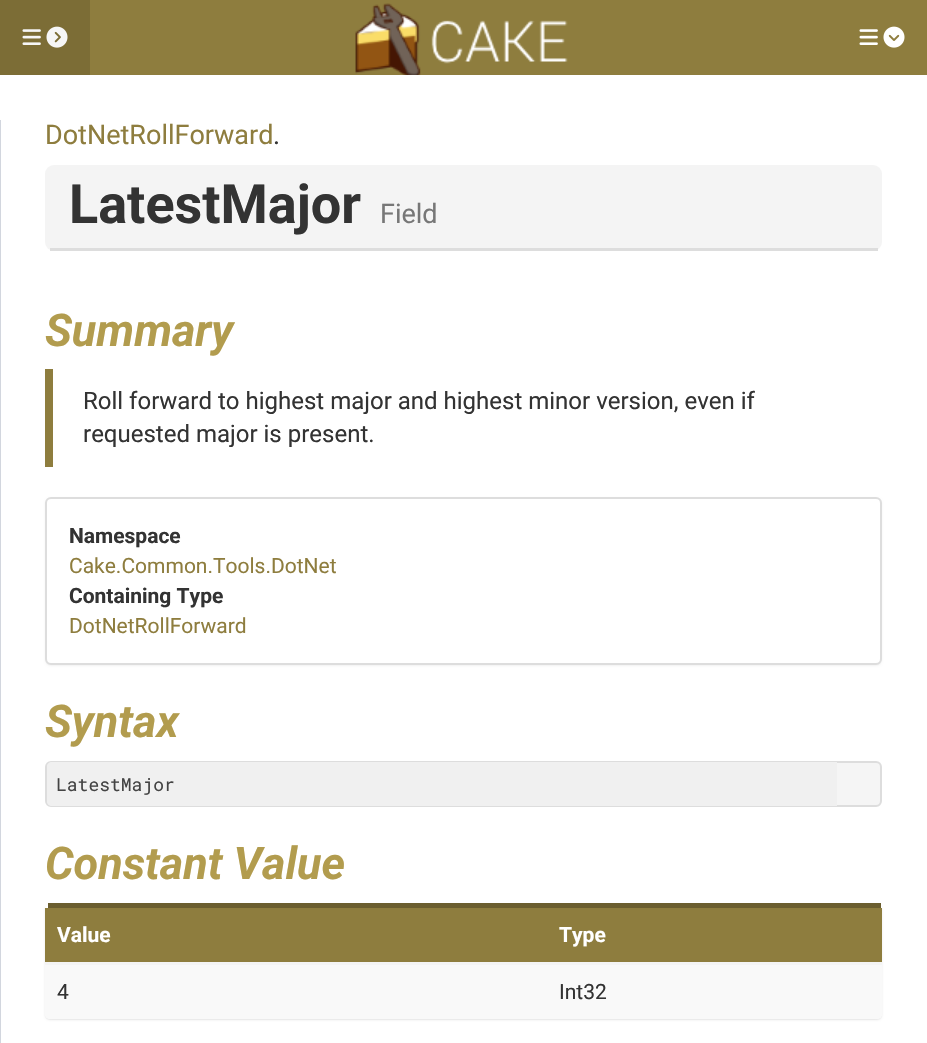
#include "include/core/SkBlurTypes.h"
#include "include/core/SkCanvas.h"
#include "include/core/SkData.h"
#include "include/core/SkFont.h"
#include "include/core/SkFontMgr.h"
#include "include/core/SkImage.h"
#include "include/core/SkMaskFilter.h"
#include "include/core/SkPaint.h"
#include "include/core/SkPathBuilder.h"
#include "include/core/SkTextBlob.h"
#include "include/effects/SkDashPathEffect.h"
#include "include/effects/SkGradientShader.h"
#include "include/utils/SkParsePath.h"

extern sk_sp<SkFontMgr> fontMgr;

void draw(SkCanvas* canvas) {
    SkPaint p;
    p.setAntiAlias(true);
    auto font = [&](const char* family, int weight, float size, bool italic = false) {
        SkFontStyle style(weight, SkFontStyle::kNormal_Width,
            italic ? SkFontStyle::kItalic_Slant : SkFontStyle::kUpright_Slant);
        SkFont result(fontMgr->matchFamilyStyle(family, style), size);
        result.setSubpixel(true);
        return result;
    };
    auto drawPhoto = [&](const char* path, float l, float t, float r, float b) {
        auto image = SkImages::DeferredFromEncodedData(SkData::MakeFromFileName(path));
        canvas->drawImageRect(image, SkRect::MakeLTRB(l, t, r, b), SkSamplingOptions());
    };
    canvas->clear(0xFFFFFFFF);
    p.setColor(0xFF8E7D3E);
    canvas->drawRect(SkRect::MakeLTRB(90, 0, 927, 75), p);
    p.setColor(0xFF7C6D36);
    canvas->drawRect(SkRect::MakeLTRB(0, 0, 90, 75), p);
    drawPhoto("media/1.png", 22, 29, 41, 45);
    drawPhoto("media/2.png", 46, 26, 68, 48);
    drawPhoto("media/3.png", 859, 29, 878, 45);
    drawPhoto("media/4.png", 883, 26, 905, 48);
    drawPhoto("media/5.png", 355, 3, 568, 75);
    p.setColor(0xFFD2D6DE);
    canvas->drawRect(SkRect::MakeLTRB(0, 120, 1, 1043), p);
    auto font1 = font("Roboto", 400, 27);
    p.setColor(0xFF8E7D3E);
    canvas->drawString("DotNetRollForward", 45, 144, font1, p);
    p.setColor(0xFF333333);
    canvas->drawString(".", 273, 144, font1, p);
    p.setColor(0xFFF4F4F4);
    canvas->drawRoundRect(SkRect::MakeLTRB(45, 165, 882, 251), 9, 9, p);
    p.setColor(0xFFDDDDDD);
    canvas->drawRect(SkRect::MakeLTRB(50, 248, 878, 251), p);
    auto font2 = font("Roboto", 700, 54);
    p.setColor(0xFF333333);
    canvas->drawString("LatestMajor", 69, 223, font2, p);
    p.setColor(0xFF777777);
    canvas->drawString("Field", 380, 223, font1, p);
    auto font3 = font("Roboto", 700, 45, true);
    p.setColor(0xFFB29C4E);
    canvas->drawString("Summary", 45, 346, font3, p);
    p.setColor(0xFF8E7D3E);
    canvas->drawRect(SkRect::MakeLTRB(45, 369, 53, 467), p);
    auto font4 = font("Roboto", 400, 24);
    p.setColor(0xFF333333);
    canvas->drawString("Roll forward to highest major and highest minor version, even if", 83, 409, font4, p);
    canvas->drawString("requested major is present.", 83, 442, font4, p);
    p.setColor(0x0D000000);
    p.setMaskFilter(SkMaskFilter::MakeBlur(kNormal_SkBlurStyle, 1));
    canvas->drawRoundRect(SkRect::MakeLTRB(45, 498, 882, 666), 6, 6, p);
    p.setMaskFilter(nullptr);
    p.setColor(0xFFFFFFFF);
    canvas->drawRoundRect(SkRect::MakeLTRB(46, 498, 881, 664), 5, 5, p);
    p.setStyle(SkPaint::kStroke_Style);
    p.setStrokeWidth(2);
    p.setColor(0xFFDDDDDD);
    canvas->drawRoundRect(SkRect::MakeLTRB(46, 498, 881, 664), 5, 5, p);
    auto font5 = font("Roboto", 700, 21);
    p.setStyle(SkPaint::kFill_Style);
    p.setColor(0xFF333333);
    canvas->drawString("Namespace", 69, 543, font5, p);
    auto font6 = font("Roboto", 400, 21);
    p.setColor(0xFF8E7D3E);
    canvas->drawString("Cake.Common.Tools.DotNet", 69, 573, font6, p);
    p.setColor(0xFF333333);
    canvas->drawString("Containing Type", 69, 603, font5, p);
    p.setColor(0xFF8E7D3E);
    canvas->drawString("DotNetRollForward", 69, 633, font6, p);
    p.setColor(0xFFB29C4E);
    canvas->drawString("Syntax", 45, 737, font3, p);
    p.setColor(0xFFF5F5F5);
    canvas->drawRoundRect(SkRect::MakeLTRB(46, 762, 881, 806), 5, 5, p);
    p.setStyle(SkPaint::kStroke_Style);
    p.setColor(0xFFDDDDDD);
    canvas->drawRoundRect(SkRect::MakeLTRB(46, 762, 881, 806), 5, 5, p);
    p.setStyle(SkPaint::kFill_Style);
    p.setColor(0xFFF0F0F0);
    canvas->drawPath(SkPathBuilder().moveTo(52, 762).lineTo(837, 762).lineTo(837, 806).lineTo(52, 806).cubicTo(49, 806, 47, 804, 47, 801).lineTo(47, 767).cubicTo(47, 764, 49, 762, 52, 762).close().detach(), p);
    auto font7 = font("Roboto Mono", 400, 18);
    p.setColor(0xFF444444);
    canvas->drawString("LatestMajor", 56, 791, font7, p);
    p.setColor(0xFFB29C4E);
    canvas->drawString("Constant Value", 45, 879, font3, p);
    p.setColor(0x1A000000);
    p.setMaskFilter(SkMaskFilter::MakeBlur(kNormal_SkBlurStyle, 1));
    canvas->drawRoundRect(SkRect::MakeLTRB(45, 905, 882, 1020), 5, 5, p);
    p.setMaskFilter(nullptr);
    p.setColor(0xFFFFFFFF);
    canvas->drawRoundRect(SkRect::MakeLTRB(45, 903, 882, 1019), 5, 5, p);
    p.setColor(0xFF6B5E2F);
    canvas->drawRect(SkRect::MakeLTRB(48, 903, 881, 908), p);
    p.setColor(0xFF8E7D3E);
    canvas->drawRect(SkRect::MakeLTRB(45, 908, 882, 962), p);
    p.setColor(0xFFFFFFFF);
    canvas->drawString("Value", 57, 942, font5, p);
    p.setColor(0xFFF9F9F9);
    canvas->drawPath(SkPathBuilder().moveTo(45, 963).lineTo(882, 963).lineTo(882, 1014).cubicTo(882, 1017, 880, 1019, 877, 1019).lineTo(50, 1019).cubicTo(47, 1019, 45, 1017, 45, 1014).close().detach(), p);
    p.setColor(0xFFF4F4F4);
    canvas->drawRect(SkRect::MakeLTRB(45, 962, 882, 965), p);
    p.setColor(0xFFFFFFFF);
    canvas->drawString("Type", 559, 942, font5, p);
    p.setColor(0xFF333333);
    canvas->drawString("4", 57, 999, font6, p);
    canvas->drawString("Int32", 559, 999, font6, p);
}
